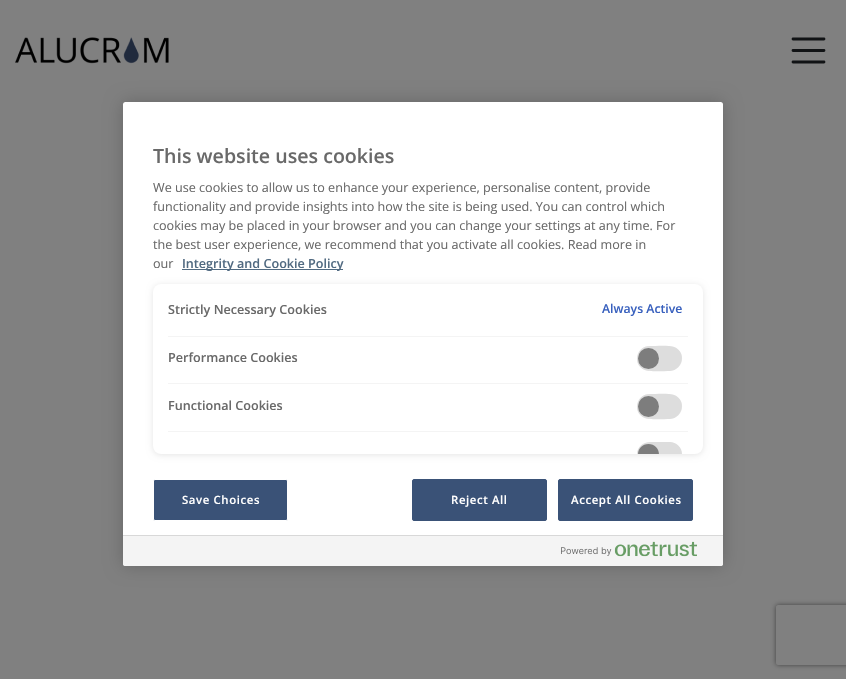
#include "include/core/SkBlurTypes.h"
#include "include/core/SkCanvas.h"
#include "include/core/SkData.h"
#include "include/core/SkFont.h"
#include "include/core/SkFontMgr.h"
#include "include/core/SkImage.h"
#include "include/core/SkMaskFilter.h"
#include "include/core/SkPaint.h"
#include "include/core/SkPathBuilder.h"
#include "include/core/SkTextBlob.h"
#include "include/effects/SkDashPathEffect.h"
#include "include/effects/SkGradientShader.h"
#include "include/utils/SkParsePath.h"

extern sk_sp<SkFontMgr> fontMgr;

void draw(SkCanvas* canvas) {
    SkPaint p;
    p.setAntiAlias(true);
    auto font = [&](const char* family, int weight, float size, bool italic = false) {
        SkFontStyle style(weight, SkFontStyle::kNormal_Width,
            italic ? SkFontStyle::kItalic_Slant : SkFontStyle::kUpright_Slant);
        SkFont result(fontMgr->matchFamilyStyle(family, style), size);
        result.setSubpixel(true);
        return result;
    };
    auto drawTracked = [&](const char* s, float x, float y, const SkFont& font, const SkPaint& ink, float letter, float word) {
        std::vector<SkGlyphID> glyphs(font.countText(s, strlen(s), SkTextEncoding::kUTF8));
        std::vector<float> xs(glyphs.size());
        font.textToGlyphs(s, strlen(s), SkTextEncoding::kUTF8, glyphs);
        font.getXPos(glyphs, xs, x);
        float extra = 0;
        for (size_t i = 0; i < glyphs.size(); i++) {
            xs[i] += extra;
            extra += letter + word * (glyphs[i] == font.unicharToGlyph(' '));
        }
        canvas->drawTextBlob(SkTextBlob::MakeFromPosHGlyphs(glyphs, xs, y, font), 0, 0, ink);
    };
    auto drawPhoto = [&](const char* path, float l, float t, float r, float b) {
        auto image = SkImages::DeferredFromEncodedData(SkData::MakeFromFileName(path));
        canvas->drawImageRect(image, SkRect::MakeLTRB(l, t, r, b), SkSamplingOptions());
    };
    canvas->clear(0xFF808080);
    drawPhoto("media/1.png", 15, 37, 169, 64);
    p.setStyle(SkPaint::kStroke_Style);
    p.setStrokeWidth(2.8f);
    p.setStrokeCap(SkPaint::kRound_Cap);
    p.setStrokeJoin(SkPaint::kRound_Join);
    p.setColor(0xFF111315);
    canvas->drawPath(SkPathBuilder().moveTo(793, 39).lineTo(824, 39).moveTo(793, 50.5f).lineTo(824, 50.5f).moveTo(793, 62).lineTo(824, 62).detach(), p);
    p.setStyle(SkPaint::kFill_Style);
    p.setColor(0x33000000);
    p.setMaskFilter(SkMaskFilter::MakeBlur(kNormal_SkBlurStyle, 9));
    canvas->drawRoundRect(SkRect::MakeLTRB(123, 102, 723, 566), 2.5f, 2.5f, p);
    p.setMaskFilter(nullptr);
    p.setColor(0xFFFFFFFF);
    canvas->drawRoundRect(SkRect::MakeLTRB(123, 102, 723, 566), 2.5f, 2.5f, p);
    auto font1 = font("Open Sans", 600, 19.6f);
    p.setColor(0xFF696969);
    canvas->drawString("This website uses cookies", 153, 163, font1, p);
    auto font2 = font("Open Sans", 400, 12.6f);
    {
        const struct { const char* s; float x, y; } items[] = {
            {"We use cookies to allow us to enhance your experience, personalise content, provide", 153, 192},
            {"functionality and provide insights into how the site is being used. You can control which", 153, 211},
            {"cookies may be placed in your browser and you can change your settings at any time. For", 153, 230},
            {"the best user experience, we recommend that you activate all cookies. Read more in", 153, 249},
            {"our", 153, 268},
        };
        for (auto [s, x, y] : items) {
            canvas->drawString(s, x, y, font2, p);
        }
    }
    p.setColor(0xFF516A81);
    canvas->drawRect(SkRect::MakeLTRB(182, 269, 343, 270), p);
    auto font3 = font("Open Sans", 600, 12.6f);
    canvas->drawString("Integrity and Cookie Policy", 182, 268, font3, p);
    p.setColor(0x1A000000);
    p.setMaskFilter(SkMaskFilter::MakeBlur(kNormal_SkBlurStyle, 3));
    canvas->drawRoundRect(SkRect::MakeLTRB(153, 285, 703, 455), 8, 8, p);
    p.setMaskFilter(nullptr);
    p.setColor(0xFFFFFFFF);
    canvas->drawRoundRect(SkRect::MakeLTRB(153, 284, 703, 454), 8, 8, p);
    p.setColor(0xFFF4F4F4);
    canvas->drawRect(SkRect::MakeLTRB(168, 336, 688, 337), p);
    p.setColor(0xFF696969);
    canvas->drawString("Strictly Necessary Cookies", 168, 314, font3, p);
    auto font4 = font("Open Sans", 600, 12.25f);
    p.setColor(0xFF3860BE);
    canvas->drawString("Always Active", 602, 313, font4, p);
    p.setColor(0xFFF4F4F4);
    canvas->drawRect(SkRect::MakeLTRB(168, 383, 688, 384), p);
    p.setColor(0xFF696969);
    canvas->drawString("Performance Cookies", 168, 362, font3, p);
    p.setColor(0xFFF2F1F1);
    canvas->drawRoundRect(SkRect::MakeLTRB(637, 346, 682, 371), 12.5f, 12.5f, p);
    p.setColor(0xFFDDDDDD);
    canvas->drawPath(SkPathBuilder().moveTo(650, 346).cubicTo(656, 346, 669, 345, 674, 347).cubicTo(687, 352, 683, 370, 670, 371).cubicTo(664, 371, 649, 372, 645, 370).cubicTo(632, 365, 636, 346, 650, 346).close().detach(), p);
    p.setColor(0xFF7D7D7D);
    canvas->drawCircle(648.5f, 358.5f, 10.5f, p);
    p.setColor(0xFFF4F4F4);
    canvas->drawRect(SkRect::MakeLTRB(168, 431, 688, 432), p);
    p.setColor(0xFF696969);
    canvas->drawString("Functional Cookies", 168, 410, font3, p);
    p.setColor(0xFFF2F1F1);
    canvas->drawRoundRect(SkRect::MakeLTRB(637, 394, 682, 419), 12.5f, 12.5f, p);
    p.setColor(0xFFDDDDDD);
    canvas->drawPath(SkPathBuilder().moveTo(650, 394).cubicTo(656, 394, 669, 393, 674, 395).cubicTo(687, 400, 683, 418, 670, 419).cubicTo(664, 419, 649, 420, 645, 418).cubicTo(632, 413, 636, 394, 650, 394).close().detach(), p);
    p.setColor(0xFF7D7D7D);
    canvas->drawCircle(648.5f, 406.5f, 10.5f, p);
    p.setColor(0xFFDDDDDD);
    canvas->drawPath(SkPathBuilder().moveTo(650, 442).cubicTo(643, 442, 637, 447, 637, 454).lineTo(682, 454).cubicTo(682, 447, 676, 442, 670, 442).close().detach(), p);
    p.setColor(0xFF7D7D7D);
    canvas->drawPath(SkPathBuilder().moveTo(648.5f, 444).cubicTo(654.5f, 444, 659, 448.5f, 659, 454.5f).lineTo(659, 454).lineTo(638, 454).lineTo(638, 454.5f).cubicTo(638, 448.5f, 642.5f, 444, 648.5f, 444).close().detach(), p);
    p.setColor(0xFF3A5277);
    canvas->drawRoundRect(SkRect::MakeLTRB(153.5f, 479.5f, 287.5f, 520.5f), 1.5f, 1.5f, p);
    p.setStyle(SkPaint::kStroke_Style);
    p.setStrokeWidth(1);
    p.setStrokeCap(SkPaint::kButt_Cap);
    p.setStrokeJoin(SkPaint::kMiter_Join);
    p.setColor(0xFFFFFFFF);
    canvas->drawRoundRect(SkRect::MakeLTRB(153.5f, 479.5f, 287.5f, 520.5f), 1.5f, 1.5f, p);
    auto font5 = font("Open Sans", 600, 11.4f);
    p.setStyle(SkPaint::kFill_Style);
    drawTracked("Save Choices", 182, 504, font5, p, 0.6f, 0);
    p.setColor(0xFF3A5277);
    canvas->drawRoundRect(SkRect::MakeLTRB(412.5f, 479.5f, 546.5f, 520.5f), 1.5f, 1.5f, p);
    p.setStyle(SkPaint::kStroke_Style);
    canvas->drawRoundRect(SkRect::MakeLTRB(412.5f, 479.5f, 546.5f, 520.5f), 1.5f, 1.5f, p);
    p.setStyle(SkPaint::kFill_Style);
    p.setColor(0xFFFFFFFF);
    drawTracked("Reject All", 451, 504, font5, p, 0.6f, 0);
    p.setColor(0xFF3A5277);
    canvas->drawRoundRect(SkRect::MakeLTRB(558.5f, 479.5f, 692.5f, 520.5f), 1.5f, 1.5f, p);
    p.setStyle(SkPaint::kStroke_Style);
    canvas->drawRoundRect(SkRect::MakeLTRB(558.5f, 479.5f, 692.5f, 520.5f), 1.5f, 1.5f, p);
    p.setStyle(SkPaint::kFill_Style);
    p.setColor(0xFFFFFFFF);
    drawTracked("Accept All Cookies", 571, 504, font5, p, 0.6f, 0);
    p.setColor(0xFFF4F4F4);
    canvas->drawPath(SkPathBuilder().moveTo(123, 535).lineTo(723, 535).lineTo(723, 563.5f).cubicTo(723, 565, 722, 566, 720.5f, 566).lineTo(125.5f, 566).cubicTo(124, 566, 123, 565, 123, 563.5f).close().detach(), p);
    p.setColor(0xFFD8D8D8);
    canvas->drawRect(SkRect::MakeLTRB(123, 535, 723, 536), p);
    drawPhoto("media/2.png", 561, 541, 697, 557);
    canvas->save();
    canvas->clipPath(SkPathBuilder(SkPathFillType::kEvenOdd).moveTo(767, 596).lineTo(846, 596).lineTo(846, 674).lineTo(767, 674).close().moveTo(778, 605).lineTo(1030, 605).cubicTo(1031, 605, 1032, 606, 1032, 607).lineTo(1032, 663).cubicTo(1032, 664, 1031, 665, 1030, 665).lineTo(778, 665).cubicTo(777, 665, 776, 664, 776, 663).lineTo(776, 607).cubicTo(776, 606, 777, 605, 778, 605).close().detach(), true);
    p.setColor(0xFF404040);
    p.setMaskFilter(SkMaskFilter::MakeBlur(kNormal_SkBlurStyle, 2.5f));
    canvas->drawRoundRect(SkRect::MakeLTRB(776, 605, 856, 665), 2, 2, p);
    p.setMaskFilter(nullptr);
    canvas->restore();
}
